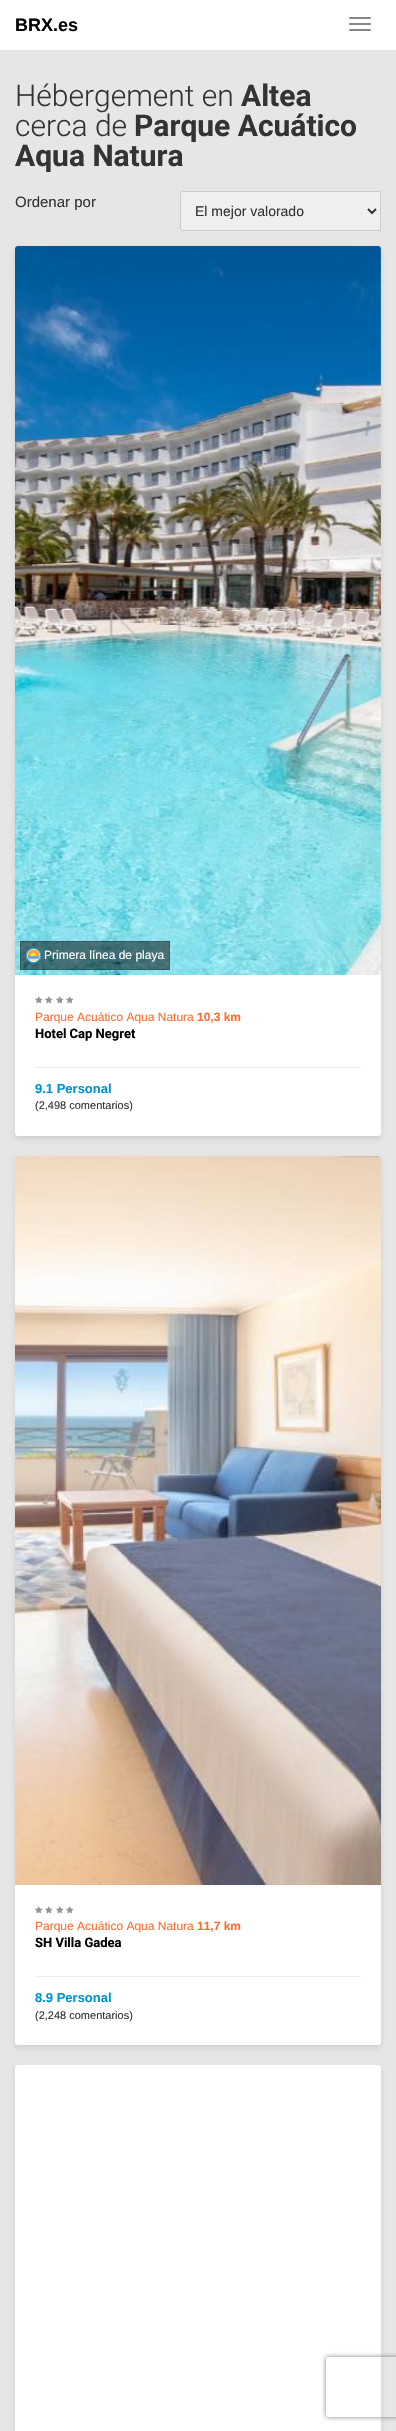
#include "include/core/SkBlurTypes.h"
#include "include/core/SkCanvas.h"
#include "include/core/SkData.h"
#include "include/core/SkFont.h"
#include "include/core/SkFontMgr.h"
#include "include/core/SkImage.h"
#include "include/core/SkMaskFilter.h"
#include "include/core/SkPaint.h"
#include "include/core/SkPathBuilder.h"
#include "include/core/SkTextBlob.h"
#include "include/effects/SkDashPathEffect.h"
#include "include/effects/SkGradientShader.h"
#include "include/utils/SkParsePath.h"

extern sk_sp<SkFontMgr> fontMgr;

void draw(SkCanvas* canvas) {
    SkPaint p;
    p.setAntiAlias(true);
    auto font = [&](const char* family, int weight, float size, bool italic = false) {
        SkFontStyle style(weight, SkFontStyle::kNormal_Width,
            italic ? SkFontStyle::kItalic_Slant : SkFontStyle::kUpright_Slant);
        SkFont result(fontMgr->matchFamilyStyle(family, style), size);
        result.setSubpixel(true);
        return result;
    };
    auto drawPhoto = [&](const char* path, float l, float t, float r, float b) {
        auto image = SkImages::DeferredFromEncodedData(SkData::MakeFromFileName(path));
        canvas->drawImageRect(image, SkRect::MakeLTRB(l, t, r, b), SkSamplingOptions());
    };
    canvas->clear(0xFFE6E6E6);
    p.setColor(0xFFFFFFFF);
    canvas->drawRect(SkRect::MakeLTRB(0, 0, 396, 50), p);
    auto font1 = font("Liberation Sans", 700, 18);
    p.setColor(0xFF000000);
    canvas->drawString("BRX.es", 15, 31, font1, p);
    p.setColor(0xFF888888);
    canvas->drawRoundRect(SkRect::MakeLTRB(349, 17, 371, 19), 1, 1, p);
    canvas->drawRoundRect(SkRect::MakeLTRB(349, 23, 371, 25), 1, 1, p);
    canvas->drawRoundRect(SkRect::MakeLTRB(349, 29, 371, 31), 1, 1, p);
    auto font2 = font("Roboto", 300, 30);
    p.setColor(0xFF333333);
    canvas->drawString("Hébergement en", 15, 106, font2, p);
    auto font3 = font("Roboto", 700, 30);
    canvas->drawString("Altea", 241, 106, font3, p);
    canvas->drawString("cerca de", 15, 136, font2, p);
    canvas->drawString("Parque Acuático", 134, 136, font3, p);
    canvas->drawString("Aqua Natura", 15, 166, font3, p);
    auto font4 = font("Liberation Sans", 400, 15);
    canvas->drawString("Ordenar por", 15, 207, font4, p);
    p.setColor(0xFFEFEFEF);
    canvas->drawPath(SkPathBuilder().moveTo(183, 191.5f).lineTo(380.5f, 191.5f).lineTo(380.5f, 230.5f).lineTo(183, 230.5f).cubicTo(181.5f, 230.5f, 180.5f, 229.5f, 180.5f, 228).lineTo(180.5f, 194).cubicTo(180.5f, 192.5f, 181.5f, 191.5f, 183, 191.5f).close().detach(), p);
    p.setStyle(SkPaint::kStroke_Style);
    p.setStrokeWidth(1);
    p.setColor(0xFFCCCCCC);
    canvas->drawPath(SkPathBuilder().moveTo(183, 191.5f).lineTo(380.5f, 191.5f).lineTo(380.5f, 230.5f).lineTo(183, 230.5f).cubicTo(181.5f, 230.5f, 180.5f, 229.5f, 180.5f, 228).lineTo(180.5f, 194).cubicTo(180.5f, 192.5f, 181.5f, 191.5f, 183, 191.5f).close().detach(), p);
    p.setStrokeWidth(2);
    p.setColor(0xFF333333);
    canvas->drawPath(SkPathBuilder().moveTo(368, 209).lineTo(372, 213).lineTo(376, 209).detach(), p);
    auto font5 = font("Liberation Sans", 400, 14);
    p.setStyle(SkPaint::kFill_Style);
    canvas->drawString("El mejor valorado", 195, 216, font5, p);
    p.setColor(0x1A000000);
    p.setMaskFilter(SkMaskFilter::MakeBlur(kNormal_SkBlurStyle, 2.5f));
    canvas->drawRoundRect(SkRect::MakeLTRB(15, 249, 381, 1139), 3, 3, p);
    p.setMaskFilter(nullptr);
    p.setColor(0xFFFFFFFF);
    canvas->drawRoundRect(SkRect::MakeLTRB(15, 246, 381, 1136), 3, 3, p);
    drawPhoto("media/1.png", 15, 246, 381, 975);
    p.setColor(0x80000000);
    canvas->drawRect(SkRect::MakeLTRB(20, 941, 170, 970), p);
    p.setStyle(SkPaint::kStroke_Style);
    p.setStrokeWidth(1);
    p.setColor(0x33000000);
    canvas->drawRect(SkRect::MakeLTRB(20.5f, 941.5f, 169.5f, 969.5f), p);
    drawPhoto("media/2.png", 26, 948, 41, 963);
    auto font6 = font("Liberation Sans", 400, 12);
    p.setStyle(SkPaint::kFill_Style);
    p.setColor(0xFFFFFFFF);
    canvas->drawString("Primera línea de playa", 44, 959, font6, p);
    drawPhoto("media/3.png", 35, 996, 43, 1004);
    drawPhoto("media/3.png", 45, 996, 53, 1004);
    drawPhoto("media/3.png", 56, 996, 64, 1004);
    drawPhoto("media/3.png", 66, 996, 74, 1004);
    p.setColor(0xFFFF6C2D);
    canvas->drawString("Parque Acuático Aqua Natura", 35, 1021, font6, p);
    auto font7 = font("Liberation Sans", 700, 12);
    canvas->drawString("10,3 km", 197, 1021, font7, p);
    auto font8 = font("Roboto", 700, 13);
    p.setColor(0xFF000000);
    canvas->drawString("Hotel Cap Negret", 35, 1038, font8, p);
    p.setColor(0xFFEDEDED);
    canvas->drawRect(SkRect::MakeLTRB(35, 1067, 361, 1068), p);
    auto font9 = font("Liberation Sans", 700, 13);
    p.setColor(0xFF0093D2);
    canvas->drawString("9.1 Personal", 35, 1093, font9, p);
    auto font10 = font("Liberation Sans", 400, 11);
    p.setColor(0xFF333333);
    canvas->drawString("(2,498 comentarios)", 35, 1109, font10, p);
    p.setColor(0x1A000000);
    p.setMaskFilter(SkMaskFilter::MakeBlur(kNormal_SkBlurStyle, 2.5f));
    canvas->drawRoundRect(SkRect::MakeLTRB(15, 1159, 381, 2048), 3, 3, p);
    p.setMaskFilter(nullptr);
    p.setColor(0xFFFFFFFF);
    canvas->drawRoundRect(SkRect::MakeLTRB(15, 1156, 381, 2045), 3, 3, p);
    drawPhoto("media/4.png", 15, 1156, 381, 1885);
    drawPhoto("media/3.png", 35, 1906, 43, 1914);
    drawPhoto("media/3.png", 45, 1906, 53, 1914);
    drawPhoto("media/3.png", 56, 1906, 64, 1914);
    drawPhoto("media/3.png", 66, 1906, 74, 1914);
    p.setColor(0xFFFF6C2D);
    canvas->drawString("Parque Acuático Aqua Natura", 35, 1930, font6, p);
    canvas->drawString("11,7 km", 197, 1930, font7, p);
    p.setColor(0xFF000000);
    canvas->drawString("SH Villa Gadea", 35, 1947, font8, p);
    p.setColor(0xFFEDEDED);
    canvas->drawRect(SkRect::MakeLTRB(35, 1976, 361, 1977), p);
    p.setColor(0xFF0093D2);
    canvas->drawString("8.9 Personal", 35, 2002, font9, p);
    p.setColor(0xFF333333);
    canvas->drawString("(2,248 comentarios)", 35, 2019, font10, p);
    p.setColor(0x1A000000);
    p.setMaskFilter(SkMaskFilter::MakeBlur(kNormal_SkBlurStyle, 2.5f));
    canvas->drawRoundRect(SkRect::MakeLTRB(15, 2068, 381, 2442), 3, 3, p);
    p.setMaskFilter(nullptr);
    p.setColor(0xFFFFFFFF);
    canvas->drawRoundRect(SkRect::MakeLTRB(15, 2065, 381, 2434), 3, 3, p);
    canvas->save();
    canvas->clipPath(SkPathBuilder(SkPathFillType::kEvenOdd).moveTo(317, 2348).lineTo(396, 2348).lineTo(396, 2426).lineTo(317, 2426).close().moveTo(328, 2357).lineTo(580, 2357).cubicTo(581, 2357, 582, 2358, 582, 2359).lineTo(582, 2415).cubicTo(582, 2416, 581, 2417, 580, 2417).lineTo(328, 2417).cubicTo(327, 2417, 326, 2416, 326, 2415).lineTo(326, 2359).cubicTo(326, 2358, 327, 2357, 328, 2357).close().detach(), true);
    p.setColor(0xFF808080);
    p.setMaskFilter(SkMaskFilter::MakeBlur(kNormal_SkBlurStyle, 2.5f));
    canvas->drawRoundRect(SkRect::MakeLTRB(326, 2357, 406, 2417), 2, 2, p);
    p.setMaskFilter(nullptr);
    canvas->restore();
}
